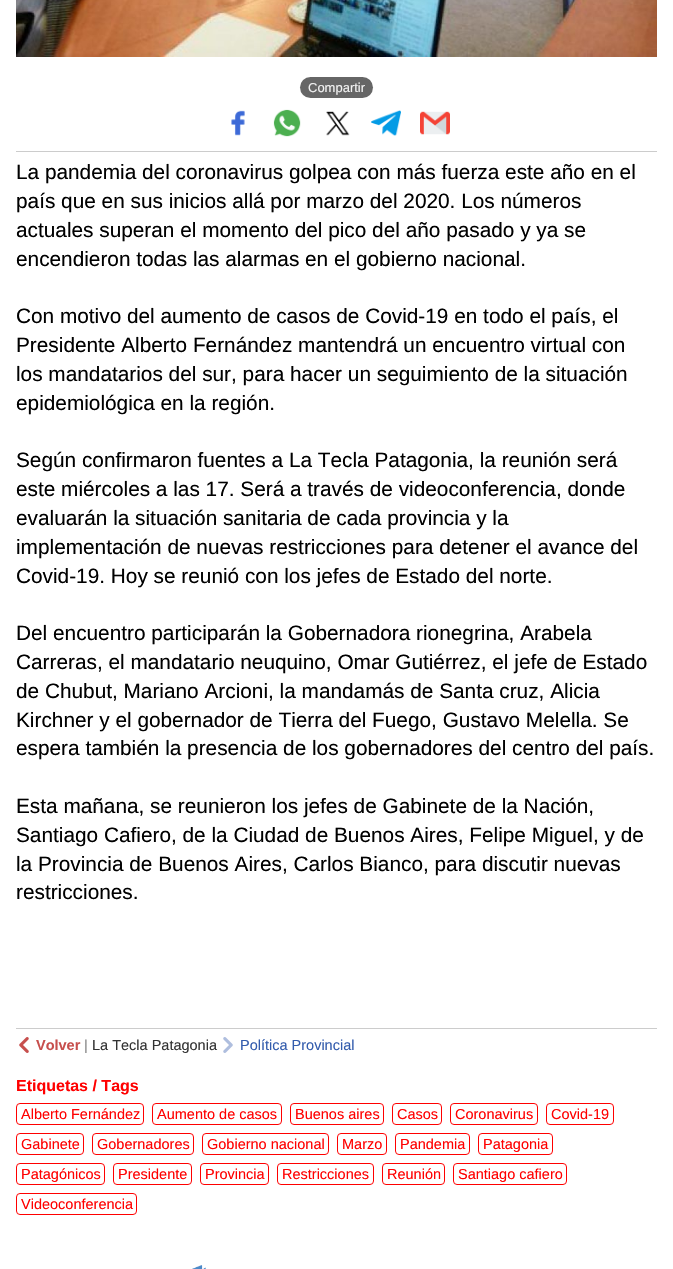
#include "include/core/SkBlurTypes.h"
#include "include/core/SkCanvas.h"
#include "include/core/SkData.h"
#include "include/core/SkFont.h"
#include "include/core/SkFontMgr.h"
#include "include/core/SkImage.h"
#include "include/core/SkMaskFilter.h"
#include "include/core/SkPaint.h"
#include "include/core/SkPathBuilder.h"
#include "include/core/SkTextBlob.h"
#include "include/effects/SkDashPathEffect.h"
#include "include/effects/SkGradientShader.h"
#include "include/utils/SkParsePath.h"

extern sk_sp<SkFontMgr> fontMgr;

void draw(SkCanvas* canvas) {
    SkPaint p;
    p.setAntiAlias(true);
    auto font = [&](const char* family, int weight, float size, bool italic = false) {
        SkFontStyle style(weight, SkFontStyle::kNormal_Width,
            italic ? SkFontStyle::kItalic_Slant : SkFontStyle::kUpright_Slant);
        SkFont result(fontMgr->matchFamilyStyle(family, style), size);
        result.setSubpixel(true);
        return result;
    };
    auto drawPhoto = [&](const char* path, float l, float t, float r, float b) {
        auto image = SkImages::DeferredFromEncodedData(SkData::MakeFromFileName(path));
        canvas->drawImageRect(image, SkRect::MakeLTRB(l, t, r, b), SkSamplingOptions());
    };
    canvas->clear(0xFFFFFFFF);
    drawPhoto("media/1.png", 16, 0, 657, 57);
    p.setColor(0xFFCCCCCC);
    canvas->drawRect(SkRect::MakeLTRB(16, 151, 657, 152), p);
    p.setColor(0xFF666666);
    canvas->drawRoundRect(SkRect::MakeLTRB(300, 77, 373, 98), 10.5f, 10.5f, p);
    auto font1 = font("Liberation Sans", 400, 13);
    p.setColor(0xFFF2F2F2);
    canvas->drawString("Compartir", 308, 92, font1, p);
    drawPhoto("media/2.png", 231, 110, 245, 136);
    drawPhoto("media/3.png", 273, 109, 301, 137);
    drawPhoto("media/4.png", 326, 111, 350, 136);
    drawPhoto("media/5.png", 371, 110, 401, 136);
    drawPhoto("media/6.png", 420, 111, 450, 135);
    p.setColor(0xFFCCCCCC);
    canvas->drawRect(SkRect::MakeLTRB(16, 1028, 657, 1029), p);
    auto font2 = font("Liberation Sans", 400, 20.8f);
    p.setColor(0xFF000000);
    {
        const struct { const char* s; float x, y; } items[] = {
            {"La pandemia del coronavirus golpea con más fuerza este año en el", 16, 179},
            {"país que en sus inicios allá por marzo del 2020. Los números", 16, 208},
            {"actuales superan el momento del pico del año pasado y ya se", 16, 237},
            {"encendieron todas las alarmas en el gobierno nacional.", 16, 266},
            {"Con motivo del aumento de casos de Covid-19 en todo el país, el", 16, 323},
            {"Presidente Alberto Fernández mantendrá un encuentro virtual con", 16, 352},
            {"los mandatarios del sur, para hacer un seguimiento de la situación", 16, 381},
            {"epidemiológica en la región.", 16, 410},
            {"Según confirmaron fuentes a La Tecla Patagonia, la reunión será", 16, 467},
            {"este miércoles a las 17. Será a través de videoconferencia, donde", 16, 496},
            {"evaluarán la situación sanitaria de cada provincia y la", 16, 525},
            {"implementación de nuevas restricciones para detener el avance del", 16, 554},
            {"Covid-19. Hoy se reunió con los jefes de Estado del norte.", 16, 583},
            {"Del encuentro participarán la Gobernadora rionegrina, Arabela", 16, 640},
            {"Carreras, el mandatario neuquino, Omar Gutiérrez, el jefe de Estado", 16, 669},
            {"de Chubut, Mariano Arcioni, la mandamás de Santa cruz, Alicia", 16, 698},
            {"Kirchner y el gobernador de Tierra del Fuego, Gustavo Melella. Se", 16, 727},
            {"espera también la presencia de los gobernadores del centro del país.", 16, 755},
            {"Esta mañana, se reunieron los jefes de Gabinete de la Nación,", 16, 813},
            {"Santiago Cafiero, de la Ciudad de Buenos Aires, Felipe Miguel, y de", 16, 842},
            {"la Provincia de Buenos Aires, Carlos Bianco, para discutir nuevas", 16, 871},
            {"restricciones.", 16, 899},
        };
        for (auto [s, x, y] : items) {
            canvas->drawString(s, x, y, font2, p);
        }
    }
    drawPhoto("media/7.png", 19, 1037, 29, 1053);
    auto font3 = font("Liberation Sans", 700, 14.5f);
    p.setColor(0xFFC74F4D);
    canvas->drawString("Volver", 36, 1050, font3, p);
    auto font4 = font("Liberation Sans", 400, 14.5f);
    p.setColor(0xFF858585);
    canvas->drawString("|", 84, 1050, font4, p);
    p.setColor(0xFF333333);
    canvas->drawString("La Tecla Patagonia", 92, 1050, font4, p);
    drawPhoto("media/8.png", 223, 1037, 233, 1053);
    p.setColor(0xFF335CAD);
    canvas->drawString("Política Provincial", 240, 1050, font4, p);
    auto font5 = font("Liberation Sans", 700, 16);
    p.setColor(0xFFFF0000);
    canvas->drawString("Etiquetas / Tags", 16, 1091, font5, p);
    p.setStyle(SkPaint::kStroke_Style);
    p.setStrokeWidth(1);
    canvas->drawRoundRect(SkRect::MakeLTRB(16.5f, 1103.5f, 143.5f, 1124.5f), 3.5f, 3.5f, p);
    p.setStyle(SkPaint::kFill_Style);
    canvas->drawString("Alberto Fernández", 21, 1119, font4, p);
    p.setStyle(SkPaint::kStroke_Style);
    canvas->drawRoundRect(SkRect::MakeLTRB(152.5f, 1103.5f, 281.5f, 1124.5f), 3.5f, 3.5f, p);
    p.setStyle(SkPaint::kFill_Style);
    canvas->drawString("Aumento de casos", 157, 1119, font4, p);
    p.setStyle(SkPaint::kStroke_Style);
    canvas->drawRoundRect(SkRect::MakeLTRB(290.5f, 1103.5f, 383.5f, 1124.5f), 3.5f, 3.5f, p);
    p.setStyle(SkPaint::kFill_Style);
    canvas->drawString("Buenos aires", 295, 1119, font4, p);
    p.setStyle(SkPaint::kStroke_Style);
    canvas->drawRoundRect(SkRect::MakeLTRB(392.5f, 1103.5f, 441.5f, 1124.5f), 3.5f, 3.5f, p);
    p.setStyle(SkPaint::kFill_Style);
    canvas->drawString("Casos", 397, 1119, font4, p);
    p.setStyle(SkPaint::kStroke_Style);
    canvas->drawRoundRect(SkRect::MakeLTRB(450.5f, 1103.5f, 537.5f, 1124.5f), 3.5f, 3.5f, p);
    p.setStyle(SkPaint::kFill_Style);
    canvas->drawString("Coronavirus", 455, 1119, font4, p);
    p.setStyle(SkPaint::kStroke_Style);
    canvas->drawRoundRect(SkRect::MakeLTRB(546.5f, 1103.5f, 613.5f, 1124.5f), 3.5f, 3.5f, p);
    p.setStyle(SkPaint::kFill_Style);
    canvas->drawString("Covid-19", 551, 1119, font4, p);
    p.setStyle(SkPaint::kStroke_Style);
    canvas->drawRoundRect(SkRect::MakeLTRB(16.5f, 1133.5f, 83.5f, 1154.5f), 3.5f, 3.5f, p);
    p.setStyle(SkPaint::kFill_Style);
    canvas->drawString("Gabinete", 21, 1149, font4, p);
    p.setStyle(SkPaint::kStroke_Style);
    canvas->drawRoundRect(SkRect::MakeLTRB(92.5f, 1133.5f, 193.5f, 1154.5f), 3.5f, 3.5f, p);
    p.setStyle(SkPaint::kFill_Style);
    canvas->drawString("Gobernadores", 97, 1149, font4, p);
    p.setStyle(SkPaint::kStroke_Style);
    canvas->drawRoundRect(SkRect::MakeLTRB(202.5f, 1133.5f, 328.5f, 1154.5f), 3.5f, 3.5f, p);
    p.setStyle(SkPaint::kFill_Style);
    canvas->drawString("Gobierno nacional", 207, 1149, font4, p);
    p.setStyle(SkPaint::kStroke_Style);
    canvas->drawRoundRect(SkRect::MakeLTRB(337.5f, 1133.5f, 386.5f, 1154.5f), 3.5f, 3.5f, p);
    p.setStyle(SkPaint::kFill_Style);
    canvas->drawString("Marzo", 342, 1149, font4, p);
    p.setStyle(SkPaint::kStroke_Style);
    canvas->drawRoundRect(SkRect::MakeLTRB(395.5f, 1133.5f, 469.5f, 1154.5f), 3.5f, 3.5f, p);
    p.setStyle(SkPaint::kFill_Style);
    canvas->drawString("Pandemia", 400, 1149, font4, p);
    p.setStyle(SkPaint::kStroke_Style);
    canvas->drawRoundRect(SkRect::MakeLTRB(478.5f, 1133.5f, 552.5f, 1154.5f), 3.5f, 3.5f, p);
    p.setStyle(SkPaint::kFill_Style);
    canvas->drawString("Patagonia", 483, 1149, font4, p);
    p.setStyle(SkPaint::kStroke_Style);
    canvas->drawRoundRect(SkRect::MakeLTRB(16.5f, 1163.5f, 104.5f, 1184.5f), 3.5f, 3.5f, p);
    p.setStyle(SkPaint::kFill_Style);
    canvas->drawString("Patagónicos", 21, 1179, font4, p);
    p.setStyle(SkPaint::kStroke_Style);
    canvas->drawRoundRect(SkRect::MakeLTRB(113.5f, 1163.5f, 191.5f, 1184.5f), 3.5f, 3.5f, p);
    p.setStyle(SkPaint::kFill_Style);
    canvas->drawString("Presidente", 118, 1179, font4, p);
    p.setStyle(SkPaint::kStroke_Style);
    canvas->drawRoundRect(SkRect::MakeLTRB(200.5f, 1163.5f, 268.5f, 1184.5f), 3.5f, 3.5f, p);
    p.setStyle(SkPaint::kFill_Style);
    canvas->drawString("Provincia", 205, 1179, font4, p);
    p.setStyle(SkPaint::kStroke_Style);
    canvas->drawRoundRect(SkRect::MakeLTRB(277.5f, 1163.5f, 373.5f, 1184.5f), 3.5f, 3.5f, p);
    p.setStyle(SkPaint::kFill_Style);
    canvas->drawString("Restricciones", 282, 1179, font4, p);
    p.setStyle(SkPaint::kStroke_Style);
    canvas->drawRoundRect(SkRect::MakeLTRB(382.5f, 1163.5f, 444.5f, 1184.5f), 3.5f, 3.5f, p);
    p.setStyle(SkPaint::kFill_Style);
    canvas->drawString("Reunión", 387, 1179, font4, p);
    p.setStyle(SkPaint::kStroke_Style);
    canvas->drawRoundRect(SkRect::MakeLTRB(453.5f, 1163.5f, 566.5f, 1184.5f), 3.5f, 3.5f, p);
    p.setStyle(SkPaint::kFill_Style);
    canvas->drawString("Santiago cafiero", 458, 1179, font4, p);
    p.setStyle(SkPaint::kStroke_Style);
    canvas->drawRoundRect(SkRect::MakeLTRB(16.5f, 1193.5f, 136.5f, 1214.5f), 3.5f, 3.5f, p);
    p.setStyle(SkPaint::kFill_Style);
    canvas->drawString("Videoconferencia", 21, 1209, font4, p);
    drawPhoto("media/9.png", 192, 1265, 206, 1269);
}
